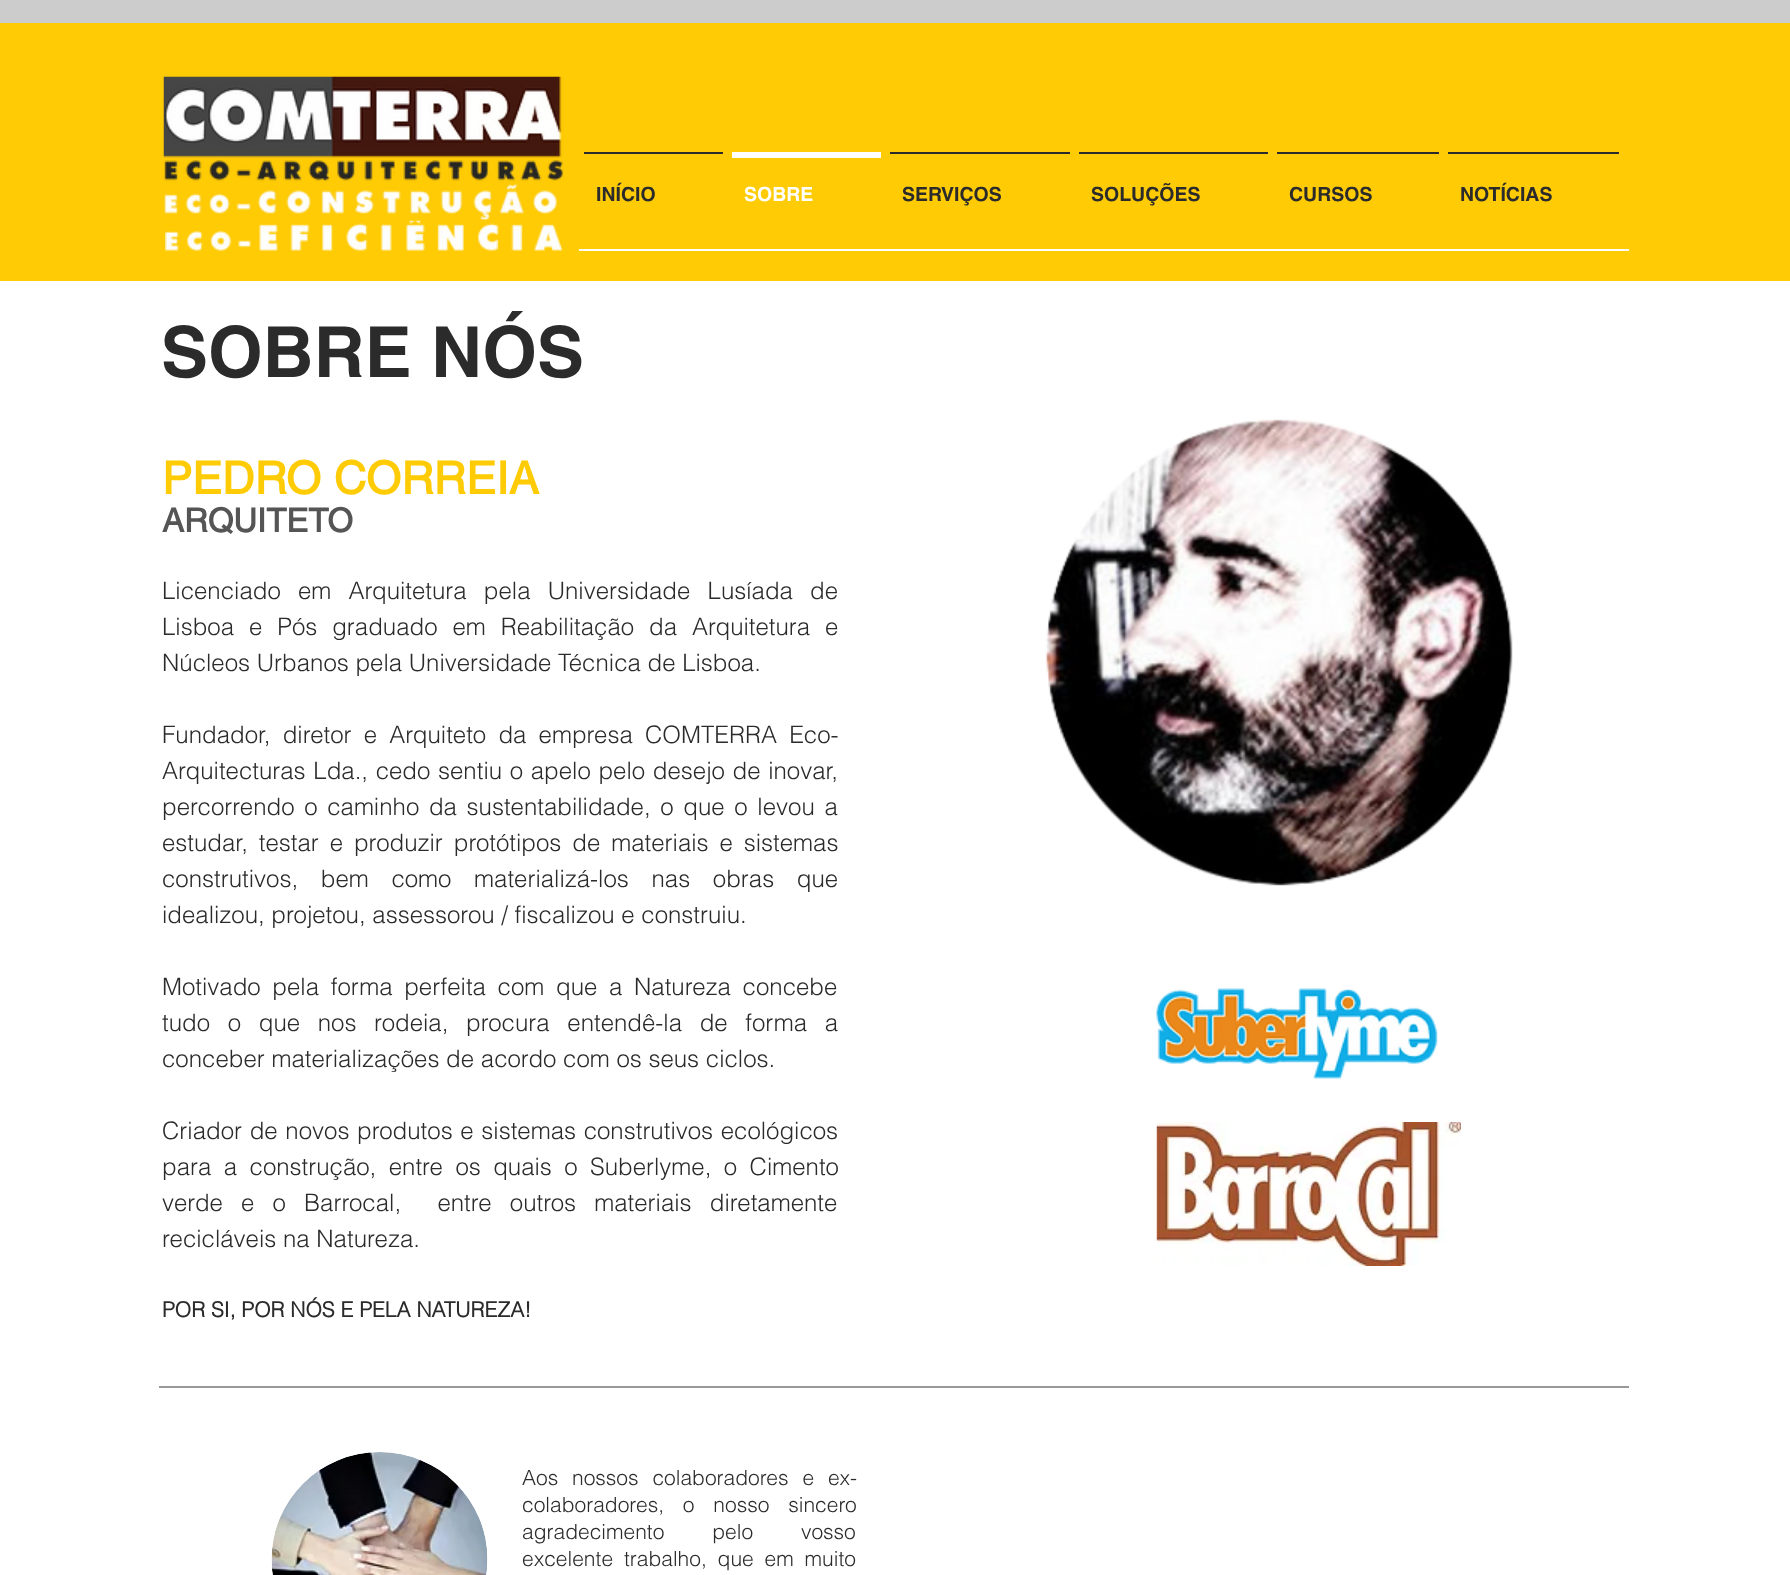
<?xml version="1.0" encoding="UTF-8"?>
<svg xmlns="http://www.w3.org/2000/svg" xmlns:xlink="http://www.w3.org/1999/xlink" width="1790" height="1575">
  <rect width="100%" height="100%" fill="#ffffff" />
  <rect y="23" width="1790" height="258" fill="#ffcb05" />
  <rect width="1790" height="23" fill="#cccccc" />
  <image x="163" y="76" width="401" height="145" xlink:href="image1.png" />
  <rect x="584" y="152" width="139" height="2" fill="#2b2b2b" />
  <rect x="732" y="152" width="149" height="6" fill="#ffffff" />
  <rect x="890" y="152" width="180" height="2" fill="#2b2b2b" />
  <rect x="1079" y="152" width="189" height="2" fill="#2b2b2b" />
  <rect x="1277" y="152" width="162" height="2" fill="#2b2b2b" />
  <rect x="1448" y="152" width="171" height="2" fill="#2b2b2b" />
  <image x="165" y="220" width="398" height="31" xlink:href="image2.png" />
  <rect x="579" y="249" width="1050" height="2" fill="#ffffff" />
  <image x="1045" y="419" width="468" height="467" xlink:href="image3.png" />
  <image x="1156" y="988" width="282" height="91" xlink:href="image4.png" />
  <image x="1156" y="1122" width="305" height="144" xlink:href="image5.png" />
  <rect x="159" y="1386" width="1470" height="2" fill="#999999" />
  <image x="271" y="1452" width="217" height="123" xlink:href="image6.png" />
  <text x="596" y="201" style="font-family: helvetica; font-size: 19.5px; font-weight: bold; fill: #2b2b2b">INÍCIO</text>
  <text x="744" y="201" style="font-family: helvetica; font-size: 19.5px; font-weight: bold; fill: #ffffff">SOBRE</text>
  <text x="902" y="201" style="font-family: helvetica; font-size: 19.5px; font-weight: bold; fill: #2b2b2b">SERVIÇOS</text>
  <text x="1091" y="201" style="font-family: helvetica; font-size: 19.5px; font-weight: bold; fill: #2b2b2b">SOLUÇÕES</text>
  <text x="1289" y="201" style="font-family: helvetica; font-size: 19.5px; font-weight: bold; fill: #2b2b2b">CURSOS</text>
  <text x="1460" y="201" style="font-family: helvetica; font-size: 19.5px; font-weight: bold; fill: #2b2b2b">NOTÍCIAS</text>
  <text x="161" y="377" style="font-family: helvetica; font-size: 70.5px; font-weight: bold; fill: #2b2b2b">SOBRE NÓS</text>
  <text x="162" y="494" style="font-family: 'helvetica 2'; font-size: 45px; font-weight: bold; fill: #ffcb05">PEDRO CORREIA</text>
  <text x="162" y="532" style="font-family: 'helvetica 2'; font-size: 33px; font-weight: bold; fill: #555555">ARQUITETO</text>
  <text x="162" y="599" word-spacing="10.5" style="font-family: helvetica; font-size: 24px; font-weight: 300; fill: #2b2b2b">Licenciado em Arquitetura pela Universidade Lusíada de</text>
  <text x="162" y="635" word-spacing="8.25" style="font-family: helvetica; font-size: 24px; font-weight: 300; fill: #2b2b2b">Lisboa e Pós graduado em Reabilitação da Arquitetura e</text>
  <text x="162" y="671" style="font-family: helvetica; font-size: 24px; font-weight: 300; fill: #2b2b2b">Núcleos Urbanos pela Universidade Técnica de Lisboa.</text>
  <text x="162" y="743" word-spacing="5.5" style="font-family: helvetica; font-size: 24px; font-weight: 300; fill: #2b2b2b">Fundador, diretor e Arquiteto da empresa COMTERRA Eco-</text>
  <text x="162" y="779" word-spacing="1" style="font-family: helvetica; font-size: 24px; font-weight: 300; fill: #2b2b2b">Arquitecturas Lda., cedo sentiu o apelo pelo desejo de inovar,</text>
  <text x="162" y="815" word-spacing="3" style="font-family: helvetica; font-size: 24px; font-weight: 300; fill: #2b2b2b">percorrendo o caminho da sustentabilidade, o que o levou a</text>
  <text x="162" y="851" word-spacing="4.25" style="font-family: helvetica; font-size: 24px; font-weight: 300; fill: #2b2b2b">estudar, testar e produzir protótipos de materiais e sistemas</text>
  <text x="162" y="887" word-spacing="16" style="font-family: helvetica; font-size: 24px; font-weight: 300; fill: #2b2b2b">construtivos, bem como materializá-los nas obras que</text>
  <text x="162" y="923" style="font-family: helvetica; font-size: 24px; font-weight: 300; fill: #2b2b2b">idealizou, projetou, assessorou / fiscalizou e construiu.</text>
  <text x="162" y="995" word-spacing="5" style="font-family: helvetica; font-size: 24px; font-weight: 300; fill: #2b2b2b">Motivado pela forma perfeita com que a Natureza concebe</text>
  <text x="162" y="1031" word-spacing="11" style="font-family: helvetica; font-size: 24px; font-weight: 300; fill: #2b2b2b">tudo o que nos rodeia, procura entendê-la de forma a</text>
  <text x="162" y="1067" style="font-family: helvetica; font-size: 24px; font-weight: 300; fill: #2b2b2b">conceber materializações de acordo com os seus ciclos.</text>
  <text x="162" y="1139" word-spacing="1" style="font-family: helvetica; font-size: 24px; font-weight: 300; fill: #2b2b2b">Criador de novos produtos e sistemas construtivos ecológicos</text>
  <text x="162" y="1175" word-spacing="5.75" style="font-family: helvetica; font-size: 24px; font-weight: 300; fill: #2b2b2b">para a construção, entre os quais o Suberlyme, o Cimento</text>
  <text x="162" y="1211" word-spacing="11.5" style="font-family: helvetica; font-size: 24px; font-weight: 300; fill: #2b2b2b" xml:space="preserve">verde e o Barrocal,  entre outros materiais diretamente</text>
  <text x="162" y="1247" style="font-family: helvetica; font-size: 24px; font-weight: 300; fill: #2b2b2b">recicláveis na Natureza.</text>
  <text x="162" y="1317" style="font-family: 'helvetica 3'; font-size: 21px; font-weight: bold; fill: #2b2b2b">POR SI, POR NÓS E PELA NATUREZA!</text>
  <text x="522" y="1485" word-spacing="8" style="font-family: helvetica; font-size: 21px; font-weight: 300; fill: #2b2b2b">Aos nossos colaboradores e ex-</text>
  <text x="522" y="1512" word-spacing="13" style="font-family: helvetica; font-size: 21px; font-weight: 300; fill: #2b2b2b">colaboradores, o nosso sincero</text>
  <text x="522" y="1539" word-spacing="42" style="font-family: helvetica; font-size: 21px; font-weight: 300; fill: #2b2b2b">agradecimento pelo vosso</text>
  <text x="522" y="1566" word-spacing="5" style="font-family: helvetica; font-size: 21px; font-weight: 300; fill: #2b2b2b">excelente trabalho, que em muito</text>
</svg>
